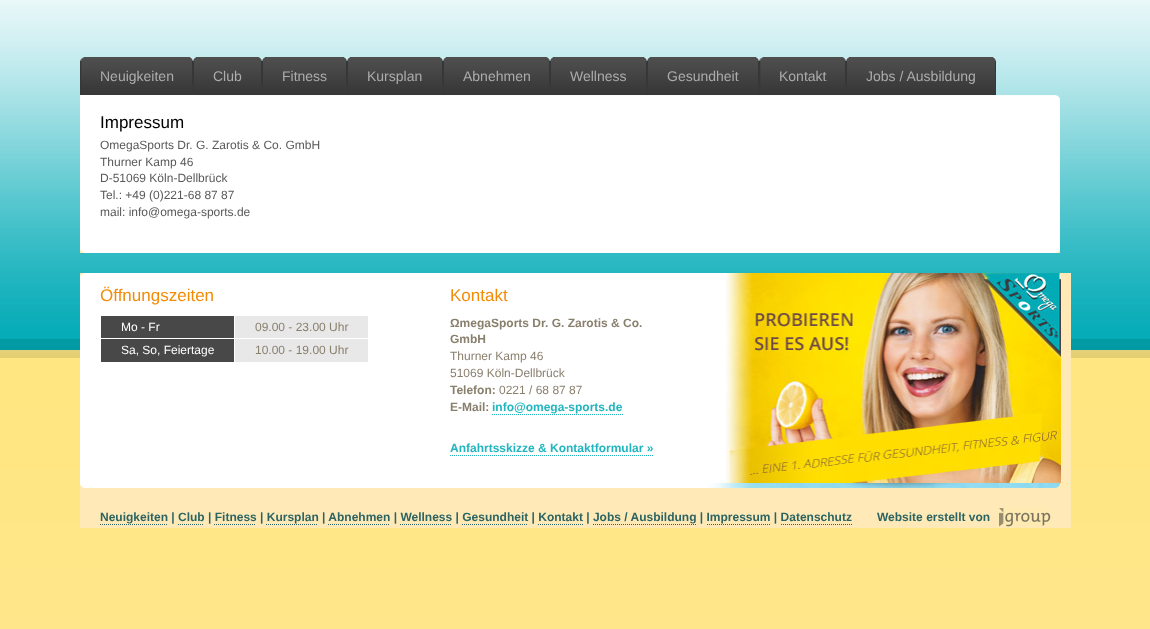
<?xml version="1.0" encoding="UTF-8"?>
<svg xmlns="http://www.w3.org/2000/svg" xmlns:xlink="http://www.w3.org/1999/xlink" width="1150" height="629">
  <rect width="100%" height="100%" fill="#ffffff" />
  <image x="0" y="0" width="1150" height="629" xlink:href="image1.png" />
  <image x="80" y="57" width="5" height="38" xlink:href="image2.png" />
  <image x="85" y="57" width="108" height="38" xlink:href="image3.png" />
  <image x="190" y="57" width="3" height="29" xlink:href="image4.png" />
  <image x="193" y="57" width="4" height="38" xlink:href="image5.png" />
  <image x="197" y="57" width="65" height="38" xlink:href="image6.png" />
  <image x="259" y="57" width="3" height="29" xlink:href="image4.png" />
  <image x="262" y="57" width="4" height="38" xlink:href="image5.png" />
  <image x="266" y="57" width="81" height="38" xlink:href="image7.png" />
  <image x="344" y="57" width="3" height="29" xlink:href="image4.png" />
  <image x="347" y="57" width="4" height="38" xlink:href="image5.png" />
  <image x="351" y="57" width="92" height="38" xlink:href="image8.png" />
  <image x="440" y="57" width="3" height="29" xlink:href="image4.png" />
  <image x="443" y="57" width="4" height="38" xlink:href="image5.png" />
  <image x="447" y="57" width="103" height="38" xlink:href="image9.png" />
  <image x="547" y="57" width="3" height="29" xlink:href="image4.png" />
  <image x="550" y="57" width="4" height="38" xlink:href="image5.png" />
  <image x="554" y="57" width="93" height="38" xlink:href="image10.png" />
  <image x="644" y="57" width="3" height="29" xlink:href="image4.png" />
  <image x="647" y="57" width="4" height="38" xlink:href="image5.png" />
  <image x="651" y="57" width="108" height="38" xlink:href="image3.png" />
  <image x="756" y="57" width="3" height="29" xlink:href="image4.png" />
  <image x="759" y="57" width="5" height="38" xlink:href="image11.png" />
  <image x="764" y="57" width="82" height="38" xlink:href="image12.png" />
  <image x="843" y="57" width="3" height="29" xlink:href="image4.png" />
  <image x="846" y="57" width="4" height="38" xlink:href="image5.png" />
  <image x="850" y="57" width="146" height="38" xlink:href="image13.png" />
  <image x="993" y="57" width="3" height="29" xlink:href="image4.png" />
  <image x="80" y="95" width="980" height="5" xlink:href="image14.png" />
  <rect x="80" y="100" width="980" height="148" fill="#ffffff" />
  <image x="80" y="248" width="980" height="5" xlink:href="image15.png" />
  <rect x="80" y="278" width="645" height="205" fill="#ffffff" />
  <image x="80" y="273" width="645" height="5" xlink:href="image16.png" />
  <rect x="1061" y="273" width="10" height="210" fill="#ffeab7" />
  <rect x="101" y="316" width="133" height="22" fill="#484848" />
  <rect x="235" y="316" width="133" height="22" fill="#e8e8e8" />
  <rect x="101" y="339" width="133" height="23" fill="#484848" />
  <rect x="235" y="339" width="133" height="23" fill="#e8e8e8" />
  <path d="M 492 414.5 h 131" fill="none" stroke="#21b5bf" stroke-dasharray="1 1" />
  <path d="M 450 455.5 h 203" fill="none" stroke="#21b5bf" stroke-dasharray="1 1" />
  <image x="725" y="273" width="336" height="210" xlink:href="image17.png" />
  <image x="80" y="483" width="991" height="5" xlink:href="image18.png" />
  <rect x="80" y="488" width="991" height="40" fill="#ffeab7" />
  <path d="M 100 524.5 h 68" fill="none" stroke="#2c6464" stroke-dasharray="1 1" />
  <path d="M 178 524.5 h 26" fill="none" stroke="#2c6464" stroke-dasharray="1 1" />
  <path d="M 214 524.5 h 42" fill="none" stroke="#2c6464" stroke-dasharray="1 1" />
  <path d="M 266 524.5 h 52" fill="none" stroke="#2c6464" stroke-dasharray="1 1" />
  <path d="M 328 524.5 h 62" fill="none" stroke="#2c6464" stroke-dasharray="1 1" />
  <path d="M 400 524.5 h 52" fill="none" stroke="#2c6464" stroke-dasharray="1 1" />
  <path d="M 462 524.5 h 66" fill="none" stroke="#2c6464" stroke-dasharray="1 1" />
  <path d="M 538 524.5 h 45" fill="none" stroke="#2c6464" stroke-dasharray="1 1" />
  <path d="M 593 524.5 h 104" fill="none" stroke="#2c6464" stroke-dasharray="1 1" />
  <path d="M 707 524.5 h 64" fill="none" stroke="#2c6464" stroke-dasharray="1 1" />
  <path d="M 781 524.5 h 71" fill="none" stroke="#2c6464" stroke-dasharray="1 1" />
  <image x="999" y="508" width="52" height="19" xlink:href="image19.png" />
  <text x="100" y="81" style="font-family: Liberation Sans; font-size: 14px; fill: #adacac">Neuigkeiten</text>
  <text x="213" y="81" style="font-family: Liberation Sans; font-size: 14px; fill: #adacac">Club</text>
  <text x="282" y="81" style="font-family: Liberation Sans; font-size: 14px; fill: #adacac">Fitness</text>
  <text x="367" y="81" style="font-family: Liberation Sans; font-size: 14px; fill: #adacac">Kursplan</text>
  <text x="463" y="81" style="font-family: Liberation Sans; font-size: 14px; fill: #adacac">Abnehmen</text>
  <text x="570" y="81" style="font-family: Liberation Sans; font-size: 14px; fill: #adacac">Wellness</text>
  <text x="667" y="81" style="font-family: Liberation Sans; font-size: 14px; fill: #adacac">Gesundheit</text>
  <text x="779" y="81" style="font-family: Liberation Sans; font-size: 14px; fill: #adacac">Kontakt</text>
  <text x="866" y="81" style="font-family: Liberation Sans; font-size: 14px; fill: #adacac">Jobs / Ausbildung</text>
  <text x="100" y="128" style="font-family: Liberation Sans; font-size: 17px; fill: #000000">Impressum</text>
  <text x="100" y="149" style="font-family: Liberation Sans; font-size: 12px; fill: #595959">OmegaSports Dr. G. Zarotis &amp; Co. GmbH</text>
  <text x="100" y="166" style="font-family: Liberation Sans; font-size: 12px; fill: #595959">Thurner Kamp 46</text>
  <text x="100" y="182" style="font-family: Liberation Sans; font-size: 12px; fill: #595959">D-51069 Köln-Dellbrück</text>
  <text x="100" y="199" style="font-family: Liberation Sans; font-size: 12px; fill: #595959">Tel.: +49 (0)221-68 87 87</text>
  <text x="100" y="216" style="font-family: Liberation Sans; font-size: 12px; fill: #595959">mail: info@omega-sports.de</text>
  <text x="100" y="301" style="font-family: Liberation Sans; font-size: 17px; fill: #f28c07">Öffnungszeiten</text>
  <text x="121" y="331" style="font-family: Liberation Sans; font-size: 12px; fill: #ffffff">Mo - Fr</text>
  <text x="255" y="331" style="font-family: Liberation Sans; font-size: 12px; fill: #897f6d">09.00 - 23.00 Uhr</text>
  <text x="121" y="354" style="font-family: Liberation Sans; font-size: 12px; fill: #ffffff">Sa, So, Feiertage</text>
  <text x="255" y="354" style="font-family: Liberation Sans; font-size: 12px; fill: #897f6d">10.00 - 19.00 Uhr</text>
  <text x="450" y="301" style="font-family: Liberation Sans; font-size: 17px; fill: #f28c07">Kontakt</text>
  <text x="450" y="327" style="font-family: Liberation Sans; font-size: 12px; font-weight: bold; fill: #897f6d">ΩmegaSports Dr. G. Zarotis &amp; Co.</text>
  <text x="450" y="343" style="font-family: Liberation Sans; font-size: 12px; font-weight: bold; fill: #897f6d">GmbH</text>
  <text x="450" y="360" style="font-family: Liberation Sans; font-size: 12px; fill: #897f6d">Thurner Kamp 46</text>
  <text x="450" y="377" style="font-family: Liberation Sans; font-size: 12px; fill: #897f6d">51069 Köln-Dellbrück</text>
  <text x="450" y="394" style="font-family: Liberation Sans; font-size: 12px; font-weight: bold; fill: #897f6d">Telefon:</text>
  <text x="499" y="394" style="font-family: Liberation Sans; font-size: 12px; fill: #897f6d">0221 / 68 87 87</text>
  <text x="450" y="411" style="font-family: Liberation Sans; font-size: 12px; font-weight: bold; fill: #897f6d">E-Mail:</text>
  <text x="492" y="411" style="font-family: Liberation Sans; font-size: 12px; font-weight: bold; fill: #21b5bf">info@omega-sports.de</text>
  <text x="450" y="452" style="font-family: Liberation Sans; font-size: 12px; font-weight: bold; fill: #21b5bf">Anfahrtsskizze &amp; Kontaktformular »</text>
  <text x="100" y="521" style="font-family: Liberation Sans; font-size: 12px; font-weight: bold; fill: #2c6464">Neuigkeiten | Club | Fitness | Kursplan | Abnehmen | Wellness | Gesundheit | Kontakt | Jobs / Ausbildung | Impressum | Datenschutz</text>
  <text x="877" y="521" style="font-family: Liberation Sans; font-size: 12px; font-weight: bold; fill: #2c6464">Website erstellt von</text>
</svg>
